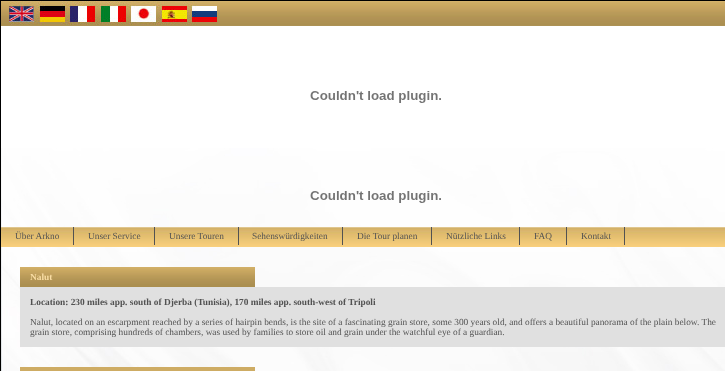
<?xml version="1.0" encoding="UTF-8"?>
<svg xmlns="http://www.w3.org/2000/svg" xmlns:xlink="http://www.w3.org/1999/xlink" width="725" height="371">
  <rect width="100%" height="100%" fill="#ffffff" />
  <image x="1" y="148" width="724" height="223" xlink:href="image1.png" />
  <rect x="0.5" y="0.5" width="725" height="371" fill="none" stroke="#000000" />
  <image x="1" y="1" width="8" height="25" xlink:href="image2.png" />
  <image x="9" y="1" width="28" height="25" xlink:href="image3.png" />
  <image x="37" y="1" width="30" height="25" xlink:href="image4.png" />
  <image x="67" y="1" width="31" height="25" xlink:href="image5.png" />
  <image x="98" y="1" width="30" height="25" xlink:href="image6.png" />
  <image x="128" y="1" width="31" height="25" xlink:href="image7.png" />
  <image x="159" y="1" width="30" height="25" xlink:href="image8.png" />
  <image x="189" y="1" width="28" height="25" xlink:href="image9.png" />
  <image x="217" y="1" width="508" height="25" xlink:href="image10.png" />
  <image x="310" y="91" width="131" height="12" xlink:href="image11.png" />
  <image x="310" y="191" width="131" height="12" xlink:href="image12.png" />
  <image x="1" y="227" width="724" height="20" xlink:href="image13.png" />
  <rect x="73" y="227" width="1" height="18" fill="#525252" />
  <rect x="154" y="227" width="1" height="18" fill="#525252" />
  <rect x="238" y="227" width="1" height="18" fill="#525252" />
  <rect x="342" y="227" width="1" height="18" fill="#525252" />
  <rect x="431" y="227" width="1" height="18" fill="#525252" />
  <rect x="519" y="227" width="1" height="18" fill="#525252" />
  <rect x="566" y="227" width="1" height="18" fill="#525252" />
  <rect x="624" y="227" width="1" height="18" fill="#525252" />
  <image x="20" y="267" width="235" height="20" xlink:href="image14.png" />
  <rect x="20" y="287" width="705" height="60" fill="#e0e0e0" />
  <rect x="20" y="367" width="235" height="4" fill="#ceac64" />
  <text x="15" y="239" style="font-family: Liberation Serif; font-size: 9.33px; fill: #525252">Über Arkno</text>
  <text x="88" y="239" style="font-family: Liberation Serif; font-size: 9.33px; fill: #525252">Unser Service</text>
  <text x="169" y="239" style="font-family: Liberation Serif; font-size: 9.33px; fill: #525252">Unsere Touren</text>
  <text x="252" y="239" style="font-family: Liberation Serif; font-size: 9.33px; fill: #525252">Sehenswürdigkeiten</text>
  <text x="357" y="239" style="font-family: Liberation Serif; font-size: 9.33px; fill: #525252">Die Tour planen</text>
  <text x="446" y="239" style="font-family: Liberation Serif; font-size: 9.33px; fill: #525252">Nützliche Links</text>
  <text x="534" y="239" style="font-family: Liberation Serif; font-size: 9.33px; fill: #525252">FAQ</text>
  <text x="581" y="239" style="font-family: Liberation Serif; font-size: 9.33px; fill: #525252">Kontakt</text>
  <text x="30" y="280" style="font-family: Liberation Serif; font-size: 9.33px; font-weight: bold; fill: #fadea5">Nalut</text>
  <text x="30" y="305" style="font-family: Liberation Serif; font-size: 9.33px; font-weight: bold; fill: #525252">Location: 230 miles app. south of Djerba (Tunisia), 170 miles app. south-west of Tripoli</text>
  <text x="30" y="325" style="font-family: Liberation Serif; font-size: 9.33px; fill: #525252">Nalut, located on an escarpment reached by a series of hairpin bends, is the site of a fascinating grain store, some 300 years old, and offers a beautiful panorama of the plain below. The</text>
  <text x="30" y="335" style="font-family: Liberation Serif; font-size: 9.33px; fill: #525252">grain store, comprising hundreds of chambers, was used by families to store oil and grain under the watchful eye of a guardian.</text>
</svg>
